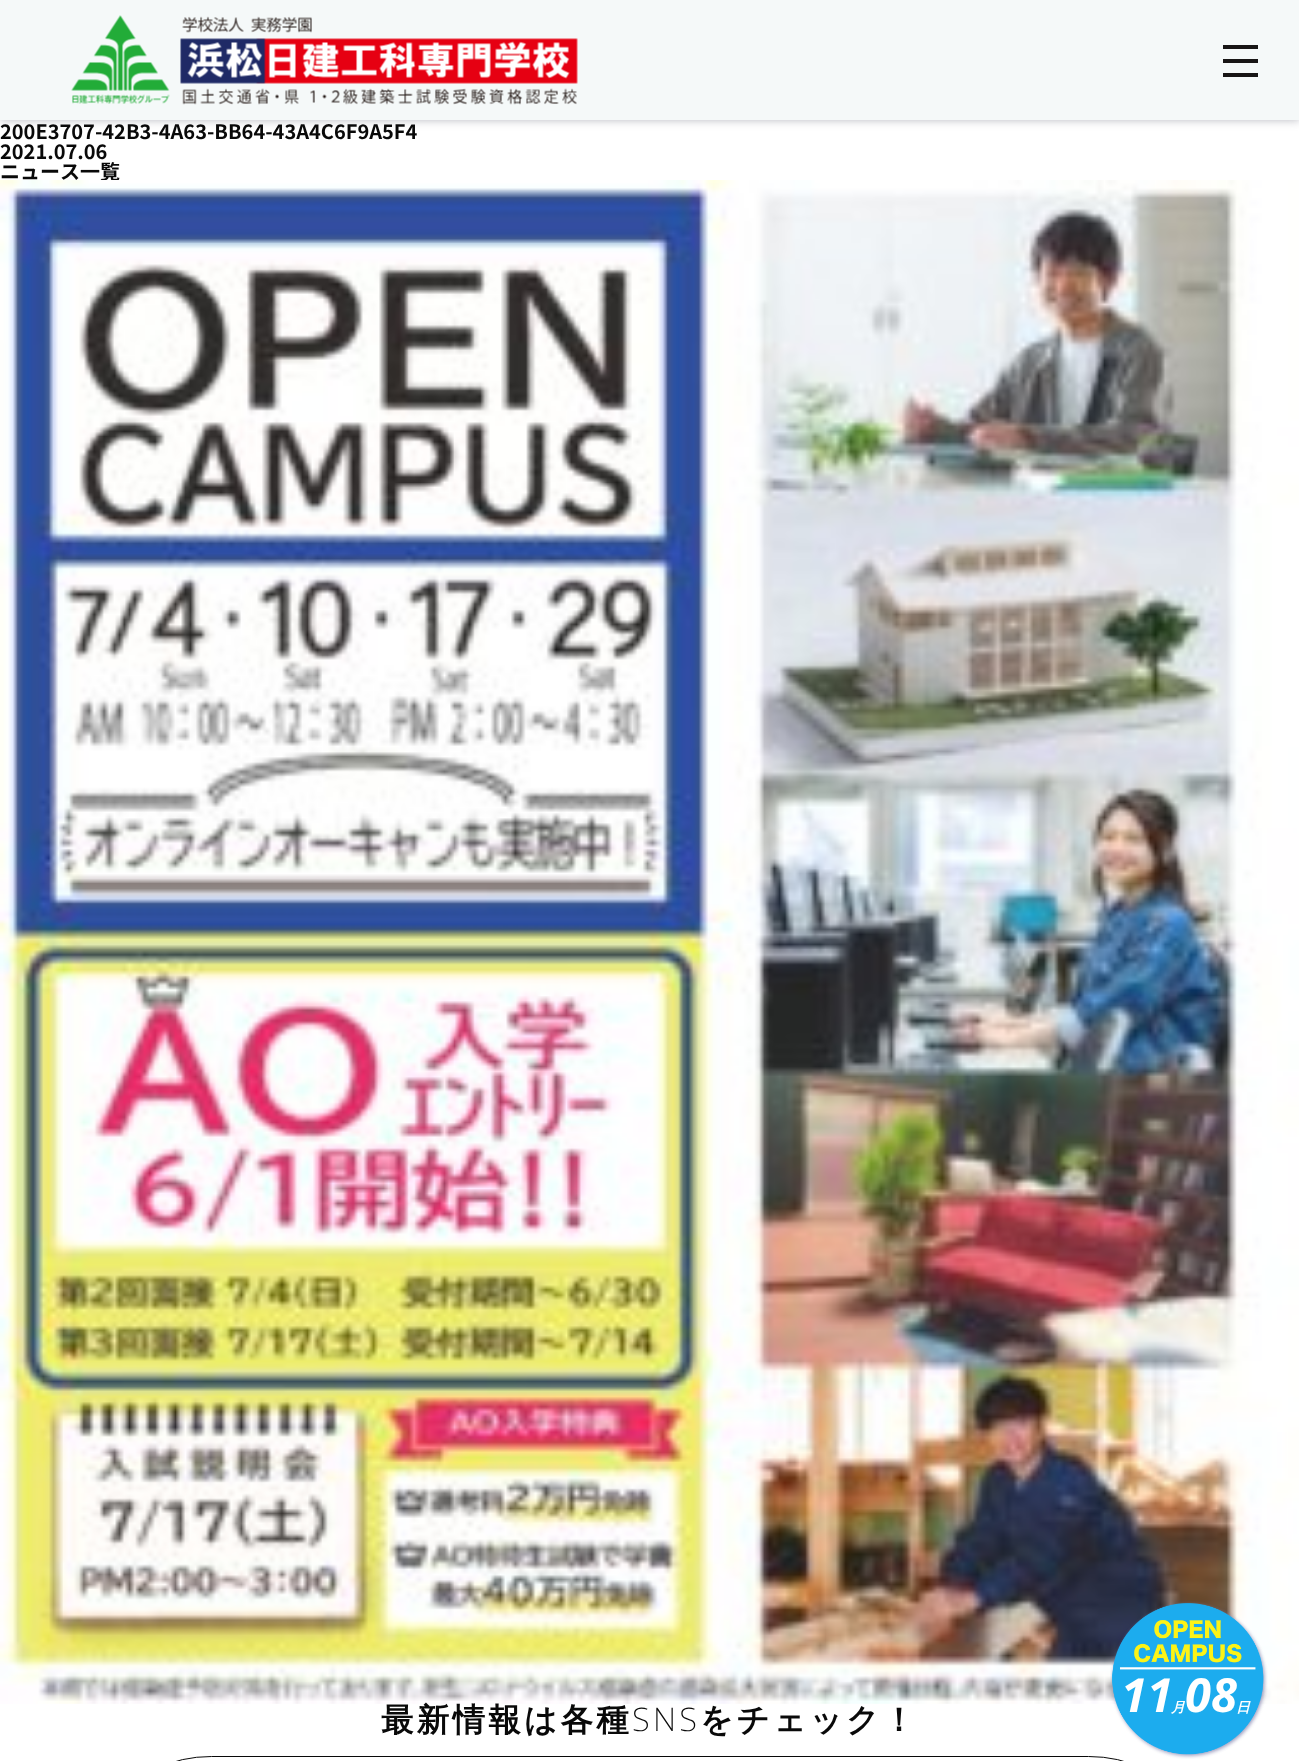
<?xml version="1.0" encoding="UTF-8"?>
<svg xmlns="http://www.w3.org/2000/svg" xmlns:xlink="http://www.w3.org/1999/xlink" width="1299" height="1761">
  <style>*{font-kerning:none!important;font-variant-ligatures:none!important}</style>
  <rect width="100%" height="100%" fill="#ffffff" />
  <rect width="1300" height="120" fill="#747583" fill-opacity="0.51" filter="blur(5px)" />
  <rect width="1299" height="120" fill="#f5f9f9" />
  <image x="71" y="15" width="507" height="90" xlink:href="image1.png" />
  <rect x="1223" y="45" width="35" height="4" fill="#181616" />
  <rect x="1223" y="59" width="35" height="4" fill="#181616" />
  <rect x="1223" y="73" width="35" height="4" fill="#181616" />
  <rect x="135.5" y="1756.5" width="1029" height="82" rx="76" fill="none" stroke="#090909" />
  <text x="0" y="139" style="font-family: Noto Sans CJK JP; font-size: 20px; font-weight: bold; fill: #090909">200E3707-42B3-4A63-BB64-43A4C6F9A5F4</text>
  <text x="0" y="159" style="font-family: Noto Sans CJK JP; font-size: 20px; font-weight: bold; fill: #090909">2021.07.06</text>
  <text x="0" y="179" style="font-family: Noto Sans CJK JP; font-size: 20px; font-weight: bold; fill: #090909">ニュース一覧</text>
  <image x="0" y="180" width="1299" height="1524" xlink:href="image2.png" />
  <text x="381" y="1731" style="font-family: WenQuanYi Zen Hei; font-size: 32.5px; font-weight: bold; letter-spacing: 3.25px; fill: #090909">最新情報は各種</text>
  <text x="632" y="1731" style="font-family: Noto Sans; font-size: 32.5px; font-weight: 200; letter-spacing: 3.25px; fill: #090909">SNS</text>
  <text x="700" y="1731" style="font-family: WenQuanYi Zen Hei; font-size: 32.5px; font-weight: bold; letter-spacing: 3.25px; fill: #090909">をチェック！</text>
  <image x="1110" y="1601" width="158" height="158" xlink:href="image3.png" />
  <text x="1121" y="1712" style="font-family: Noto Sans; font-size: 47px; font-weight: bold; font-style: italic; fill: #ffffff">11</text>
  <text x="1171" y="1712" style="font-family: WenQuanYi Zen Hei; font-size: 14px; font-weight: bold; font-style: italic; fill: #ffffff">月</text>
  <text x="1185" y="1712" style="font-family: Noto Sans; font-size: 47px; font-weight: bold; font-style: italic; fill: #ffffff">08</text>
  <text x="1236" y="1712" style="font-family: WenQuanYi Zen Hei; font-size: 14px; font-weight: bold; font-style: italic; fill: #ffffff">日</text>
</svg>
